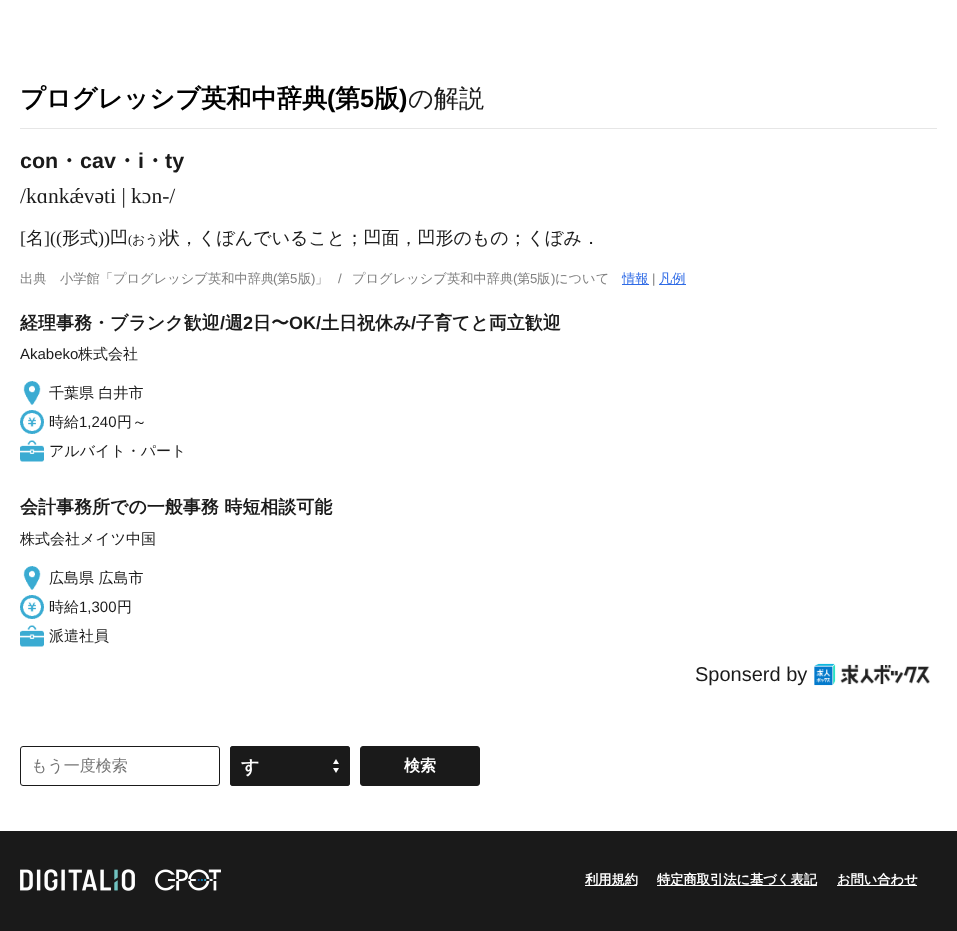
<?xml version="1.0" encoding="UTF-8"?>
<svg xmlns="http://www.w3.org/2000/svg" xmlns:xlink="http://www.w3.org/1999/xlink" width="957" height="931">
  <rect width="100%" height="100%" fill="#ffffff" />
  <rect x="20" y="128" width="917" height="1" fill="#e6e6e6" />
  <rect x="622" y="284" width="27" height="1" fill="#2f6be6" />
  <rect x="659" y="284" width="27" height="1" fill="#2f6be6" />
  <image x="23" y="381" width="18" height="24" xlink:href="image1.png" />
  <image x="20" y="410" width="24" height="24" xlink:href="image2.png" />
  <image x="20" y="440" width="24" height="22" xlink:href="image3.png" />
  <image x="23" y="566" width="18" height="24" xlink:href="image1.png" />
  <image x="20" y="595" width="24" height="24" xlink:href="image2.png" />
  <image x="20" y="625" width="24" height="22" xlink:href="image3.png" />
  <image x="814" y="663" width="116" height="23" xlink:href="image4.png" />
  <rect x="20.5" y="746.5" width="199" height="39" rx="2.5" fill="none" stroke="#1a1a1a" />
  <rect x="230" y="746" width="120" height="40" rx="3" fill="#1a1a1a" />
  <image x="333" y="759" width="6" height="14" xlink:href="image5.png" />
  <rect x="230.5" y="746.5" width="119" height="39" rx="2.5" fill="none" stroke="#1a1a1a" />
  <rect x="360.5" y="746.5" width="119" height="39" rx="2.5" fill="#1a1a1a" stroke="#1a1a1a" />
  <rect y="831" width="957" height="100" fill="#1a1a1a" />
  <image x="20" y="869" width="115" height="22" xlink:href="image6.png" />
  <image x="155" y="869" width="66" height="22" xlink:href="image7.png" />
  <rect x="585" y="885" width="52" height="1" fill="#ffffff" />
  <rect x="657" y="885" width="160" height="1" fill="#ffffff" />
  <rect x="837" y="885" width="80" height="1" fill="#ffffff" />
  <text x="20" y="107" style="font-family: WenQuanYi Zen Hei; font-size: 25.25px; font-weight: bold; fill: #000000">プログレッシブ英和中辞典</text>
  <text x="327" y="107" style="font-family: Liberation Sans; font-size: 25.25px; font-weight: bold; fill: #000000">(</text>
  <text x="335" y="107" style="font-family: WenQuanYi Zen Hei; font-size: 25.25px; font-weight: bold; fill: #000000">第</text>
  <text x="360" y="107" style="font-family: Liberation Sans; font-size: 25.25px; font-weight: bold; fill: #000000">5</text>
  <text x="374" y="107" style="font-family: WenQuanYi Zen Hei; font-size: 25.25px; font-weight: bold; fill: #000000">版</text>
  <text x="399" y="107" style="font-family: Liberation Sans; font-size: 25.25px; font-weight: bold; fill: #000000">)</text>
  <text x="408" y="107" style="font-family: WenQuanYi Zen Hei; font-size: 25.25px; font-weight: 500; fill: #1a1a1a">の解説</text>
  <text x="20" y="168" style="font-family: Liberation Sans; font-size: 21.5px; font-weight: bold; fill: #1a1a1a">con</text>
  <text x="58" y="168" style="font-family: WenQuanYi Zen Hei; font-size: 21.5px; font-weight: bold; fill: #1a1a1a">・</text>
  <text x="80" y="168" style="font-family: Liberation Sans; font-size: 21.5px; font-weight: bold; fill: #1a1a1a">cav</text>
  <text x="116" y="168" style="font-family: WenQuanYi Zen Hei; font-size: 21.5px; font-weight: bold; fill: #1a1a1a">・</text>
  <text x="138" y="168" style="font-family: Liberation Sans; font-size: 21.5px; font-weight: bold; fill: #1a1a1a">i</text>
  <text x="144" y="168" style="font-family: WenQuanYi Zen Hei; font-size: 21.5px; font-weight: bold; fill: #1a1a1a">・</text>
  <text x="165" y="168" style="font-family: Liberation Sans; font-size: 21.5px; font-weight: bold; fill: #1a1a1a">ty</text>
  <text x="20" y="203" style="font-family: Liberation Serif; font-size: 21.5px; fill: #1a1a1a">/kɑnkǽvəti | kɔn-/</text>
  <text x="20" y="244" style="font-family: Liberation Serif; font-size: 18px; fill: #1a1a1a">[</text>
  <text x="26" y="244" style="font-family: WenQuanYi Zen Hei; font-size: 18px; font-weight: 500; fill: #1a1a1a">名</text>
  <text x="44" y="244" style="font-family: Liberation Serif; font-size: 18px; fill: #1a1a1a">]((</text>
  <text x="62" y="244" style="font-family: WenQuanYi Zen Hei; font-size: 18px; font-weight: 500; fill: #1a1a1a">形式</text>
  <text x="98" y="244" style="font-family: Liberation Serif; font-size: 18px; fill: #1a1a1a">))</text>
  <text x="110" y="244" style="font-family: WenQuanYi Zen Hei; font-size: 18px; font-weight: 500; fill: #1a1a1a">凹</text>
  <text x="128" y="244" style="font-family: Liberation Serif; font-size: 13px; fill: #1a1a1a">(</text>
  <text x="132" y="244" style="font-family: WenQuanYi Zen Hei; font-size: 13px; font-weight: 500; fill: #1a1a1a">おう</text>
  <text x="158" y="244" style="font-family: Liberation Serif; font-size: 13px; fill: #1a1a1a">)</text>
  <text x="162" y="244" style="font-family: WenQuanYi Zen Hei; font-size: 18px; font-weight: 500; fill: #1a1a1a">状，くぼんでいること；凹面，凹形のもの；くぼみ．</text>
  <text x="20" y="283" style="font-family: WenQuanYi Zen Hei; font-size: 13.25px; font-weight: 500; fill: #808080">出典</text>
  <text x="60" y="283" style="font-family: WenQuanYi Zen Hei; font-size: 13.25px; font-weight: 500; fill: #808080">小学館「プログレッシブ英和中辞典</text>
  <text x="273" y="283" style="font-family: Liberation Sans; font-size: 13.25px; fill: #808080">(</text>
  <text x="277" y="283" style="font-family: WenQuanYi Zen Hei; font-size: 13.25px; font-weight: 500; fill: #808080">第</text>
  <text x="290" y="283" style="font-family: Liberation Sans; font-size: 13.25px; fill: #808080">5</text>
  <text x="298" y="283" style="font-family: WenQuanYi Zen Hei; font-size: 13.25px; font-weight: 500; fill: #808080">版</text>
  <text x="311" y="283" style="font-family: Liberation Sans; font-size: 13.25px; fill: #808080">)</text>
  <text x="315" y="283" style="font-family: WenQuanYi Zen Hei; font-size: 13.25px; font-weight: 500; fill: #808080">」</text>
  <text x="338" y="283" style="font-family: Liberation Sans; font-size: 13.25px; fill: #808080">/</text>
  <text x="352" y="283" style="font-family: WenQuanYi Zen Hei; font-size: 13.25px; font-weight: 500; fill: #808080">プログレッシブ英和中辞典</text>
  <text x="513" y="283" style="font-family: Liberation Sans; font-size: 13.25px; fill: #808080">(</text>
  <text x="517" y="283" style="font-family: WenQuanYi Zen Hei; font-size: 13.25px; font-weight: 500; fill: #808080">第</text>
  <text x="530" y="283" style="font-family: Liberation Sans; font-size: 13.25px; fill: #808080">5</text>
  <text x="537" y="283" style="font-family: WenQuanYi Zen Hei; font-size: 13.25px; font-weight: 500; fill: #808080">版</text>
  <text x="551" y="283" style="font-family: Liberation Sans; font-size: 13.25px; fill: #808080">)</text>
  <text x="555" y="283" style="font-family: WenQuanYi Zen Hei; font-size: 13.25px; font-weight: 500; fill: #808080">について</text>
  <text x="622" y="283" style="font-family: WenQuanYi Zen Hei; font-size: 13.25px; font-weight: 500; fill: #2f6be6">情報</text>
  <text x="652" y="283" style="font-family: Liberation Sans; font-size: 13.25px; fill: #808080">|</text>
  <text x="659" y="283" style="font-family: WenQuanYi Zen Hei; font-size: 13.25px; font-weight: 500; fill: #2f6be6">凡例</text>
  <text x="20" y="329" style="font-family: WenQuanYi Zen Hei; font-size: 18px; font-weight: bold; fill: #1a1a1a">経理事務・ブランク歓迎</text>
  <text x="220" y="329" style="font-family: Liberation Sans; font-size: 18px; font-weight: bold; fill: #1a1a1a">/</text>
  <text x="225" y="329" style="font-family: WenQuanYi Zen Hei; font-size: 18px; font-weight: bold; fill: #1a1a1a">週</text>
  <text x="243" y="329" style="font-family: Liberation Sans; font-size: 18px; font-weight: bold; fill: #1a1a1a">2</text>
  <text x="253" y="329" style="font-family: WenQuanYi Zen Hei; font-size: 18px; font-weight: bold; fill: #1a1a1a">日〜</text>
  <text x="289" y="329" style="font-family: Liberation Sans; font-size: 18px; font-weight: bold; fill: #1a1a1a">OK/</text>
  <text x="321" y="329" style="font-family: WenQuanYi Zen Hei; font-size: 18px; font-weight: bold; fill: #1a1a1a">土日祝休み</text>
  <text x="411" y="329" style="font-family: Liberation Sans; font-size: 18px; font-weight: bold; fill: #1a1a1a">/</text>
  <text x="416" y="329" style="font-family: WenQuanYi Zen Hei; font-size: 18px; font-weight: bold; fill: #1a1a1a">子育てと両立歓迎</text>
  <text x="20" y="359" style="font-family: Liberation Sans; font-size: 15px; fill: #1a1a1a">Akabeko</text>
  <text x="78" y="359" style="font-family: WenQuanYi Zen Hei; font-size: 15px; font-weight: 500; fill: #1a1a1a">株式会社</text>
  <text x="49" y="398" style="font-family: WenQuanYi Zen Hei; font-size: 15px; font-weight: 500; fill: #1a1a1a">千葉県 白井市</text>
  <text x="49" y="427" style="font-family: WenQuanYi Zen Hei; font-size: 15px; font-weight: 500; fill: #1a1a1a">時給</text>
  <text x="79" y="427" style="font-family: Liberation Sans; font-size: 15px; fill: #1a1a1a">1,240</text>
  <text x="117" y="427" style="font-family: WenQuanYi Zen Hei; font-size: 15px; font-weight: 500; fill: #1a1a1a">円～</text>
  <text x="49" y="456" style="font-family: WenQuanYi Zen Hei; font-size: 15px; font-weight: 500; fill: #1a1a1a">アルバイト・パート</text>
  <text x="20" y="513" style="font-family: WenQuanYi Zen Hei; font-size: 18px; font-weight: bold; fill: #1a1a1a">会計事務所での一般事務 時短相談可能</text>
  <text x="20" y="544" style="font-family: WenQuanYi Zen Hei; font-size: 15px; font-weight: 500; fill: #1a1a1a">株式会社メイツ中国</text>
  <text x="49" y="583" style="font-family: WenQuanYi Zen Hei; font-size: 15px; font-weight: 500; fill: #1a1a1a">広島県 広島市</text>
  <text x="49" y="612" style="font-family: WenQuanYi Zen Hei; font-size: 15px; font-weight: 500; fill: #1a1a1a">時給</text>
  <text x="79" y="612" style="font-family: Liberation Sans; font-size: 15px; fill: #1a1a1a">1,300</text>
  <text x="117" y="612" style="font-family: WenQuanYi Zen Hei; font-size: 15px; font-weight: 500; fill: #1a1a1a">円</text>
  <text x="49" y="641" style="font-family: WenQuanYi Zen Hei; font-size: 15px; font-weight: 500; fill: #1a1a1a">派遣社員</text>
  <text x="695" y="681" style="font-family: Liberation Sans; font-size: 20px; fill: #1a1a1a">Sponserd by</text>
  <text x="31" y="771" style="font-family: WenQuanYi Zen Hei; font-size: 16px; font-weight: 500; fill: #757575">もう一度検索</text>
  <text x="241" y="773" style="font-family: WenQuanYi Zen Hei; font-size: 18px; font-weight: bold; fill: #ffffff">す</text>
  <text x="404" y="771" style="font-family: WenQuanYi Zen Hei; font-size: 16px; font-weight: bold; fill: #ffffff">検索</text>
  <text x="585" y="884" style="font-family: WenQuanYi Zen Hei; font-size: 13.25px; font-weight: bold; fill: #ffffff">利用規約</text>
  <text x="657" y="884" style="font-family: WenQuanYi Zen Hei; font-size: 13.25px; font-weight: bold; fill: #ffffff">特定商取引法に基づく表記</text>
  <text x="837" y="884" style="font-family: WenQuanYi Zen Hei; font-size: 13.25px; font-weight: bold; fill: #ffffff">お問い合わせ</text>
</svg>
